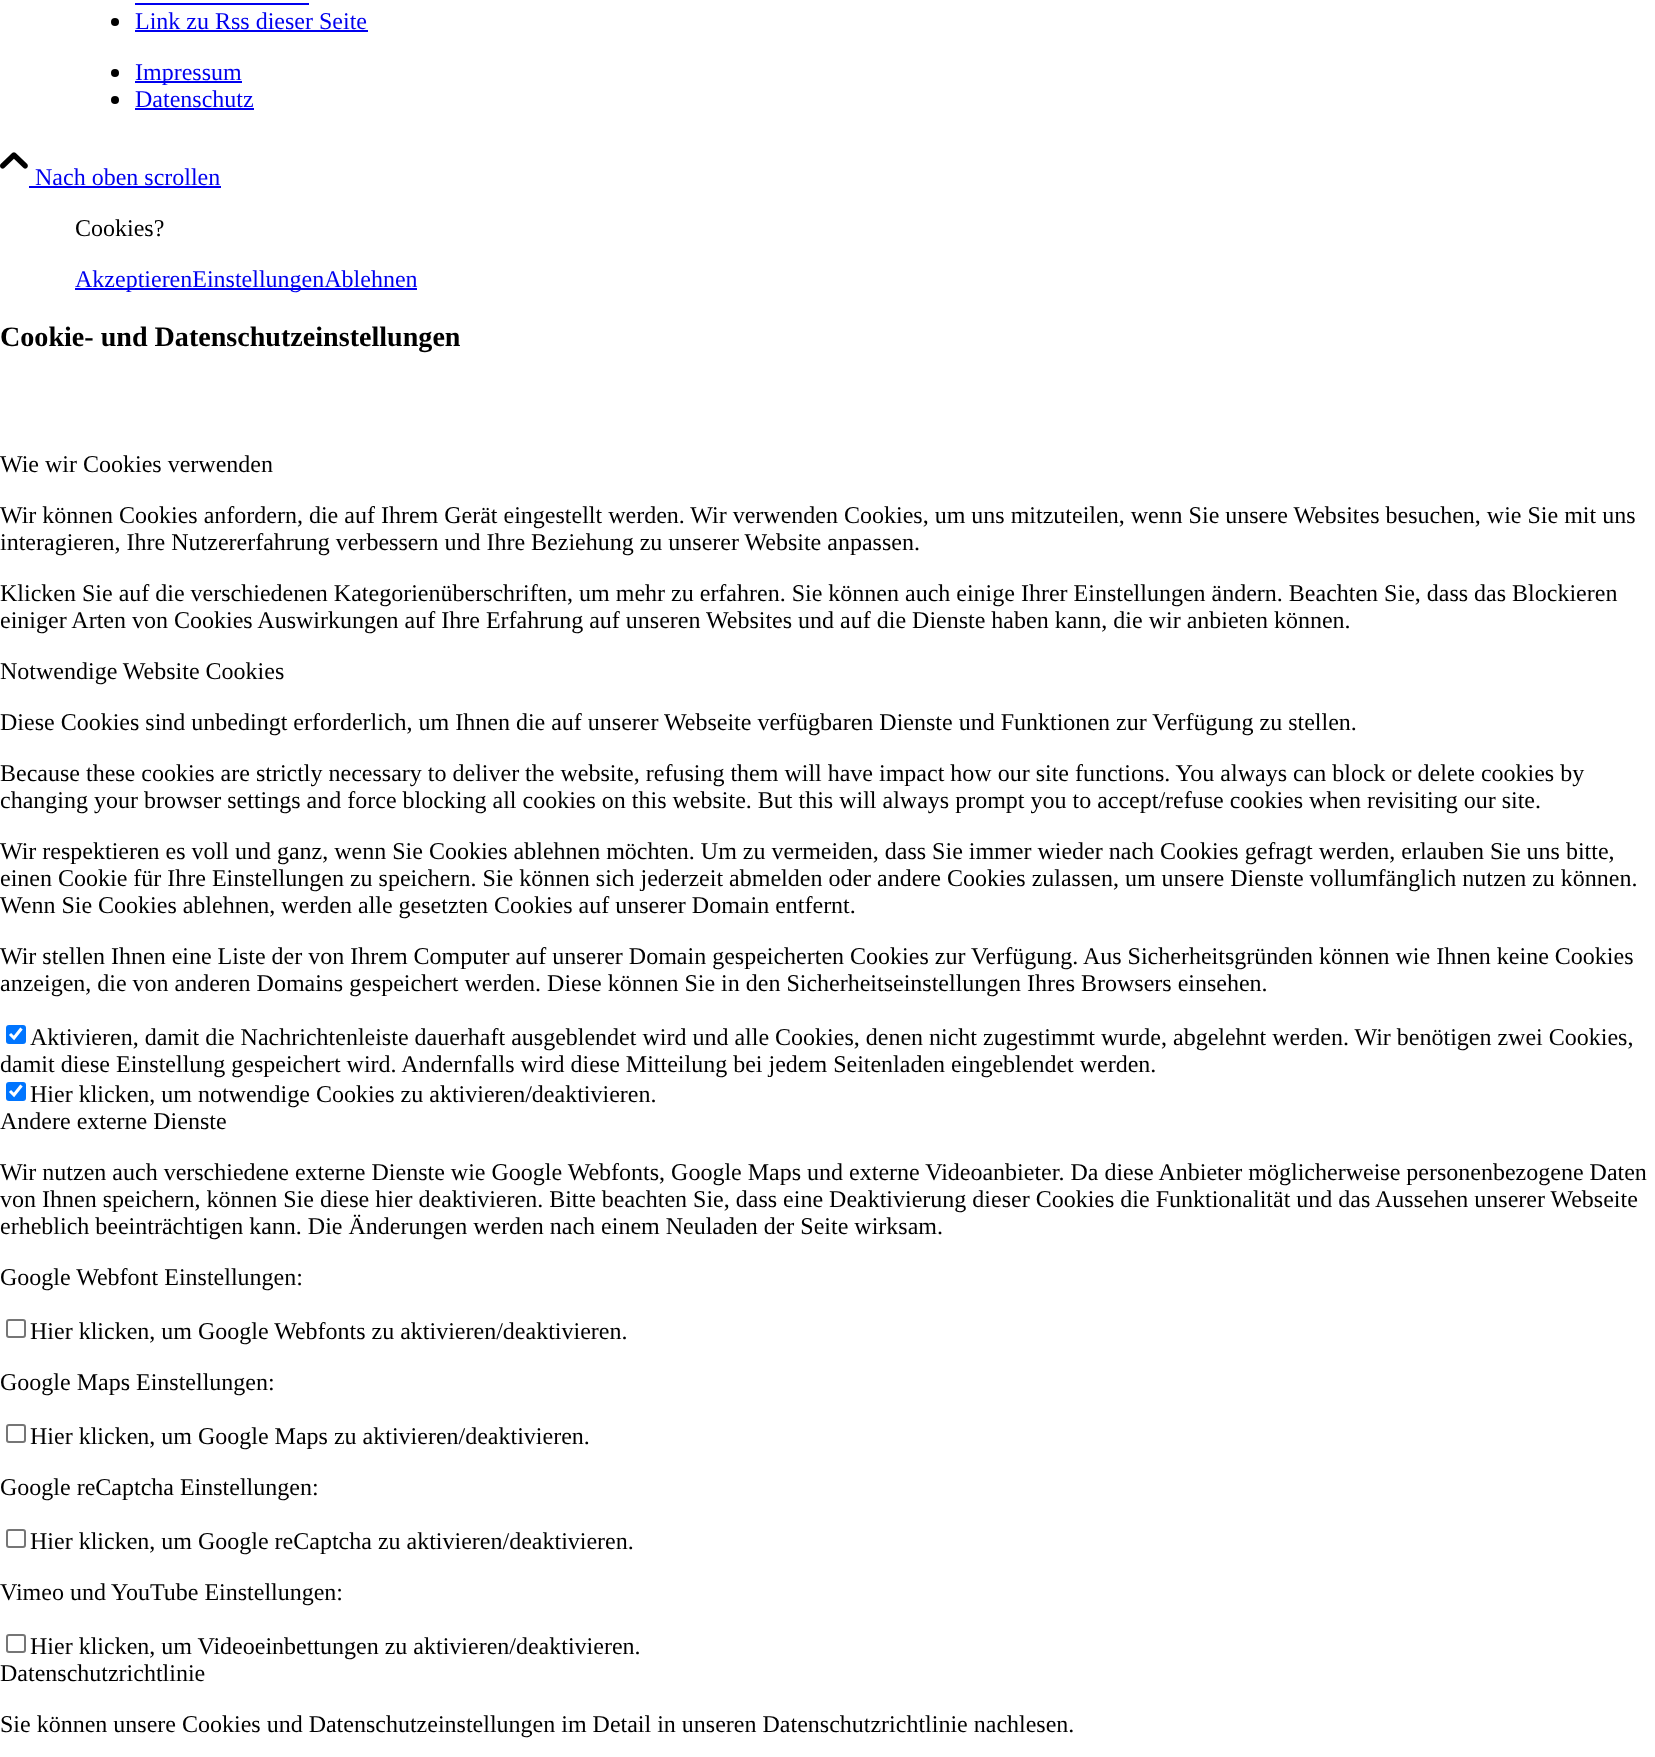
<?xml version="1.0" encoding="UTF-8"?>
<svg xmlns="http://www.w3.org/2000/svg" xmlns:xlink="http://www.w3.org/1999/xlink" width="1655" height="1757">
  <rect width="100%" height="100%" fill="#ffffff" />
  <rect x="135" y="3" width="174" height="2" fill="#0000ee" />
  <circle cx="115" cy="22" r="4" fill="#000000" />
  <rect x="135" y="30" width="233" height="2" fill="#0000ee" />
  <circle cx="115" cy="73" r="4" fill="#000000" />
  <rect x="135" y="81" width="107" height="2" fill="#0000ee" />
  <circle cx="115" cy="100" r="4" fill="#000000" />
  <rect x="135" y="108" width="119" height="2" fill="#0000ee" />
  <image x="0" y="152" width="28" height="17" xlink:href="image1.png" />
  <rect x="29" y="186" width="192" height="2" fill="#0000ee" />
  <rect x="75" y="288" width="342" height="2" fill="#0000ee" />
  <rect x="6" y="1025" width="20" height="19" rx="3" fill="#0075ff" />
  <path d="M 10 1034 l 4 4 l 7.5 -9.5" fill="none" stroke="#ffffff" stroke-width="3.1" />
  <rect x="6" y="1082" width="20" height="19" rx="3" fill="#0075ff" />
  <path d="M 10 1091 l 4 4 l 7.5 -9.5" fill="none" stroke="#ffffff" stroke-width="3.1" />
  <rect x="7" y="1320" width="18" height="17" rx="2" fill="none" stroke="#767676" stroke-width="2" />
  <rect x="7" y="1425" width="18" height="17" rx="2" fill="none" stroke="#767676" stroke-width="2" />
  <rect x="7" y="1530" width="18" height="17" rx="2" fill="none" stroke="#767676" stroke-width="2" />
  <rect x="7" y="1635" width="18" height="17" rx="2" fill="none" stroke="#767676" stroke-width="2" />
  <text x="135" y="29" style="font-family: Liberation Serif; font-size: 24px; fill: #0000ee">Link zu Rss dieser Seite</text>
  <text x="135" y="80" style="font-family: Liberation Serif; font-size: 24px; fill: #0000ee">Impressum</text>
  <text x="135" y="107" style="font-family: Liberation Serif; font-size: 24px; fill: #0000ee">Datenschutz</text>
  <text x="35" y="185" style="font-family: Liberation Serif; font-size: 24px; fill: #0000ee">Nach oben scrollen</text>
  <text x="75" y="236" style="font-family: Liberation Serif; font-size: 24px; fill: #000000">Cookies?</text>
  <text x="75" y="287" style="font-family: Liberation Serif; font-size: 24px; fill: #0000ee">AkzeptierenEinstellungenAblehnen</text>
  <text x="0" y="346" style="font-family: Liberation Serif; font-size: 28.1px; font-weight: bold; fill: #000000">Cookie- und Datenschutzeinstellungen</text>
  <text x="0" y="472" style="font-family: Liberation Serif; font-size: 24px; fill: #000000">Wie wir Cookies verwenden</text>
  <text x="0" y="523" style="font-family: Liberation Serif; font-size: 24px; fill: #000000">Wir können Cookies anfordern, die auf Ihrem Gerät eingestellt werden. Wir verwenden Cookies, um uns mitzuteilen, wenn Sie unsere Websites besuchen, wie Sie mit uns</text>
  <text x="0" y="550" style="font-family: Liberation Serif; font-size: 24px; fill: #000000">interagieren, Ihre Nutzererfahrung verbessern und Ihre Beziehung zu unserer Website anpassen.</text>
  <text x="0" y="601" style="font-family: Liberation Serif; font-size: 24px; fill: #000000">Klicken Sie auf die verschiedenen Kategorienüberschriften, um mehr zu erfahren. Sie können auch einige Ihrer Einstellungen ändern. Beachten Sie, dass das Blockieren</text>
  <text x="0" y="628" style="font-family: Liberation Serif; font-size: 24px; fill: #000000">einiger Arten von Cookies Auswirkungen auf Ihre Erfahrung auf unseren Websites und auf die Dienste haben kann, die wir anbieten können.</text>
  <text x="0" y="679" style="font-family: Liberation Serif; font-size: 24px; fill: #000000">Notwendige Website Cookies</text>
  <text x="0" y="730" style="font-family: Liberation Serif; font-size: 24px; fill: #000000">Diese Cookies sind unbedingt erforderlich, um Ihnen die auf unserer Webseite verfügbaren Dienste und Funktionen zur Verfügung zu stellen.</text>
  <text x="0" y="781" style="font-family: Liberation Serif; font-size: 24px; fill: #000000">Because these cookies are strictly necessary to deliver the website, refusing them will have impact how our site functions. You always can block or delete cookies by</text>
  <text x="0" y="808" style="font-family: Liberation Serif; font-size: 24px; fill: #000000">changing your browser settings and force blocking all cookies on this website. But this will always prompt you to accept/refuse cookies when revisiting our site.</text>
  <text x="0" y="859" style="font-family: Liberation Serif; font-size: 24px; fill: #000000">Wir respektieren es voll und ganz, wenn Sie Cookies ablehnen möchten. Um zu vermeiden, dass Sie immer wieder nach Cookies gefragt werden, erlauben Sie uns bitte,</text>
  <text x="0" y="886" style="font-family: Liberation Serif; font-size: 24px; fill: #000000">einen Cookie für Ihre Einstellungen zu speichern. Sie können sich jederzeit abmelden oder andere Cookies zulassen, um unsere Dienste vollumfänglich nutzen zu können.</text>
  <text x="0" y="913" style="font-family: Liberation Serif; font-size: 24px; fill: #000000">Wenn Sie Cookies ablehnen, werden alle gesetzten Cookies auf unserer Domain entfernt.</text>
  <text x="0" y="964" style="font-family: Liberation Serif; font-size: 24px; fill: #000000">Wir stellen Ihnen eine Liste der von Ihrem Computer auf unserer Domain gespeicherten Cookies zur Verfügung. Aus Sicherheitsgründen können wie Ihnen keine Cookies</text>
  <text x="0" y="991" style="font-family: Liberation Serif; font-size: 24px; fill: #000000">anzeigen, die von anderen Domains gespeichert werden. Diese können Sie in den Sicherheitseinstellungen Ihres Browsers einsehen.</text>
  <text x="30" y="1045" style="font-family: Liberation Serif; font-size: 24px; fill: #000000">Aktivieren, damit die Nachrichtenleiste dauerhaft ausgeblendet wird und alle Cookies, denen nicht zugestimmt wurde, abgelehnt werden. Wir benötigen zwei Cookies,</text>
  <text x="0" y="1072" style="font-family: Liberation Serif; font-size: 24px; fill: #000000">damit diese Einstellung gespeichert wird. Andernfalls wird diese Mitteilung bei jedem Seitenladen eingeblendet werden.</text>
  <text x="30" y="1102" style="font-family: Liberation Serif; font-size: 24px; fill: #000000">Hier klicken, um notwendige Cookies zu aktivieren/deaktivieren.</text>
  <text x="0" y="1129" style="font-family: Liberation Serif; font-size: 24px; fill: #000000">Andere externe Dienste</text>
  <text x="0" y="1180" style="font-family: Liberation Serif; font-size: 24px; fill: #000000">Wir nutzen auch verschiedene externe Dienste wie Google Webfonts, Google Maps und externe Videoanbieter. Da diese Anbieter möglicherweise personenbezogene Daten</text>
  <text x="0" y="1207" style="font-family: Liberation Serif; font-size: 24px; fill: #000000">von Ihnen speichern, können Sie diese hier deaktivieren. Bitte beachten Sie, dass eine Deaktivierung dieser Cookies die Funktionalität und das Aussehen unserer Webseite</text>
  <text x="0" y="1234" style="font-family: Liberation Serif; font-size: 24px; fill: #000000">erheblich beeinträchtigen kann. Die Änderungen werden nach einem Neuladen der Seite wirksam.</text>
  <text x="0" y="1285" style="font-family: Liberation Serif; font-size: 24px; fill: #000000">Google Webfont Einstellungen:</text>
  <text x="30" y="1339" style="font-family: Liberation Serif; font-size: 24px; fill: #000000">Hier klicken, um Google Webfonts zu aktivieren/deaktivieren.</text>
  <text x="0" y="1390" style="font-family: Liberation Serif; font-size: 24px; fill: #000000">Google Maps Einstellungen:</text>
  <text x="30" y="1444" style="font-family: Liberation Serif; font-size: 24px; fill: #000000">Hier klicken, um Google Maps zu aktivieren/deaktivieren.</text>
  <text x="0" y="1495" style="font-family: Liberation Serif; font-size: 24px; fill: #000000">Google reCaptcha Einstellungen:</text>
  <text x="30" y="1549" style="font-family: Liberation Serif; font-size: 24px; fill: #000000">Hier klicken, um Google reCaptcha zu aktivieren/deaktivieren.</text>
  <text x="0" y="1600" style="font-family: Liberation Serif; font-size: 24px; fill: #000000">Vimeo und YouTube Einstellungen:</text>
  <text x="30" y="1654" style="font-family: Liberation Serif; font-size: 24px; fill: #000000">Hier klicken, um Videoeinbettungen zu aktivieren/deaktivieren.</text>
  <text x="0" y="1681" style="font-family: Liberation Serif; font-size: 24px; fill: #000000">Datenschutzrichtlinie</text>
  <text x="0" y="1732" style="font-family: Liberation Serif; font-size: 24px; fill: #000000">Sie können unsere Cookies und Datenschutzeinstellungen im Detail in unseren Datenschutzrichtlinie nachlesen.</text>
</svg>
